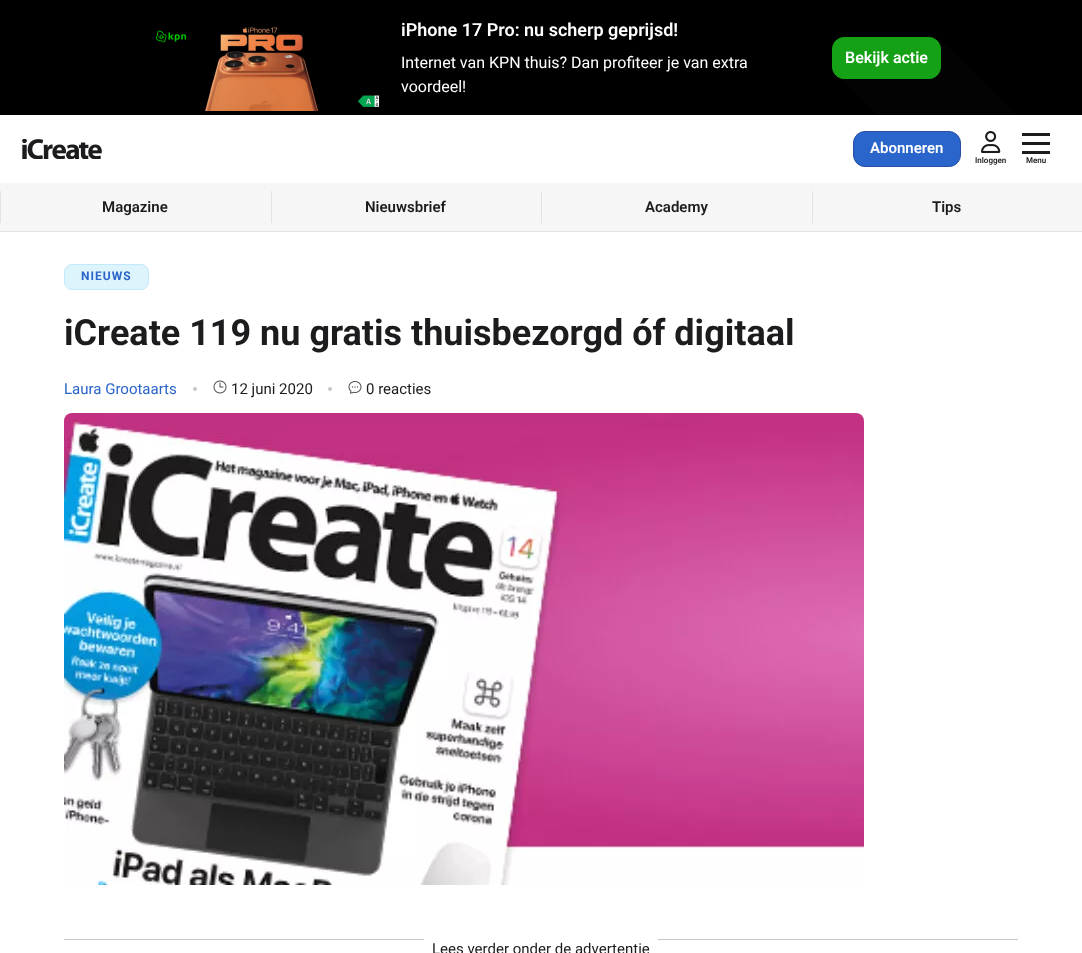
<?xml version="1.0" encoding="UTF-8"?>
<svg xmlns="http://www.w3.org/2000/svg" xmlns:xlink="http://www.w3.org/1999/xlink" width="1082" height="953">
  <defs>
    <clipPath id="clip1"><rect width="1082" height="115" /></clipPath>
  </defs>
  <rect width="100%" height="100%" fill="#ffffff" />
  <rect width="1082" height="115" fill="#000000" />
  <image x="155" y="27" width="225" height="84" xlink:href="image1.png" />
  <g clip-path="url(#clip1)">
    <path d="M 832 70 h 109 l 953 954 h -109 z" fill="#030303" />
    <path d="M 844 36 h 85 c 4 0 12 4 16 8 l 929 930 c 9 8 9 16 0 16 h -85 c -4 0 -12 -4 -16 -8 l -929 -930 c -9 -8 -9 -16 0 -16 z" fill="#030303" />
  </g>
  <rect x="832.5" y="37.5" width="108" height="41" rx="11.5" fill="#15a115" stroke="#15a115" />
  <rect y="231" width="1082" height="1" fill="#e2e3e5" />
  <image x="22" y="139" width="80" height="20" xlink:href="image2.png" />
  <rect x="853.5" y="131.5" width="107" height="35" rx="11.5" fill="#2a65cb" stroke="#284da4" />
  <image x="981" y="131" width="20" height="22" xlink:href="image3.png" />
  <rect x="1022" y="133" width="28" height="3" fill="#1c1c1e" />
  <rect x="1022" y="142" width="28" height="3" fill="#1c1c1e" />
  <rect x="1022" y="151" width="28" height="3" fill="#1c1c1e" />
  <rect y="183" width="1082" height="48" fill="#f6f6f7" />
  <rect y="191" width="1" height="32" fill="#e2e3e5" />
  <rect x="271" y="191" width="1" height="32" fill="#e2e3e5" />
  <rect x="541" y="191" width="1" height="32" fill="#e2e3e5" />
  <rect x="812" y="191" width="1" height="32" fill="#e2e3e5" />
  <rect x="64.5" y="264.5" width="84" height="25" rx="7.5" fill="#def4fc" stroke="#c2e9fa" />
  <circle cx="195" cy="389" r="2" fill="#c5c6ca" />
  <image x="213" y="380" width="14" height="14" xlink:href="image4.png" />
  <circle cx="330" cy="389" r="2" fill="#c5c6ca" />
  <image x="348" y="381" width="14" height="13" xlink:href="image5.png" />
  <image x="64" y="413" width="800" height="472" xlink:href="image6.png" />
  <rect x="64" y="939" width="360" height="1" fill="#c5c6ca" />
  <rect x="658" y="939" width="360" height="1" fill="#c5c6ca" />
  <text x="401" y="36" style="font-family: Roboto; font-size: 18px; font-weight: 600; fill: #ffffff">iPhone 17 Pro: nu scherp geprijsd!</text>
  <text x="401" y="68" style="font-family: Roboto; font-size: 16px; fill: #ffffff">Internet van KPN thuis? Dan profiteer je van extra</text>
  <text x="401" y="92" style="font-family: Roboto; font-size: 16px; fill: #ffffff">voordeel!</text>
  <text x="845" y="63" style="font-family: Roboto; font-size: 16px; font-weight: 600; fill: #ffffff">Bekijk actie</text>
  <text x="870" y="153" style="font-family: Roboto; font-size: 15px; font-weight: 600; fill: #ffffff">Abonneren</text>
  <text x="975" y="163" style="font-family: Roboto; font-size: 8px; font-weight: 600; fill: #1c1c1e">Inloggen</text>
  <text x="1026" y="163" style="font-family: Roboto; font-size: 8px; font-weight: 600; fill: #1c1c1e">Menu</text>
  <text x="102" y="212" style="font-family: Roboto; font-size: 15px; font-weight: 600; fill: #1c1c1e">Magazine</text>
  <text x="365" y="212" style="font-family: Roboto; font-size: 15px; font-weight: 600; fill: #1c1c1e">Nieuwsbrief</text>
  <text x="645" y="212" style="font-family: Roboto; font-size: 15px; font-weight: 600; fill: #1c1c1e">Academy</text>
  <text x="932" y="212" style="font-family: Roboto; font-size: 15px; font-weight: 600; fill: #1c1c1e">Tips</text>
  <text x="81" y="280" style="font-family: Roboto; font-size: 12px; font-weight: bold; letter-spacing: 1px; fill: #2a65cb">NIEUWS</text>
  <text x="64" y="345" style="font-family: Roboto; font-size: 36px; font-weight: bold; fill: #1c1c1e">iCreate 119 nu gratis thuisbezorgd óf digitaal</text>
  <text x="64" y="394" style="font-family: Roboto; font-size: 15px; fill: #2a65cb">Laura Grootaarts</text>
  <text x="231" y="394" style="font-family: Roboto; font-size: 15px; fill: #1c1c1e">12 juni 2020</text>
  <text x="366" y="394" style="font-family: Roboto; font-size: 15px; fill: #1c1c1e">0 reacties</text>
  <text x="432" y="954" style="font-family: Roboto; font-size: 15px; fill: #1c1c1e">Lees verder onder de advertentie</text>
</svg>
